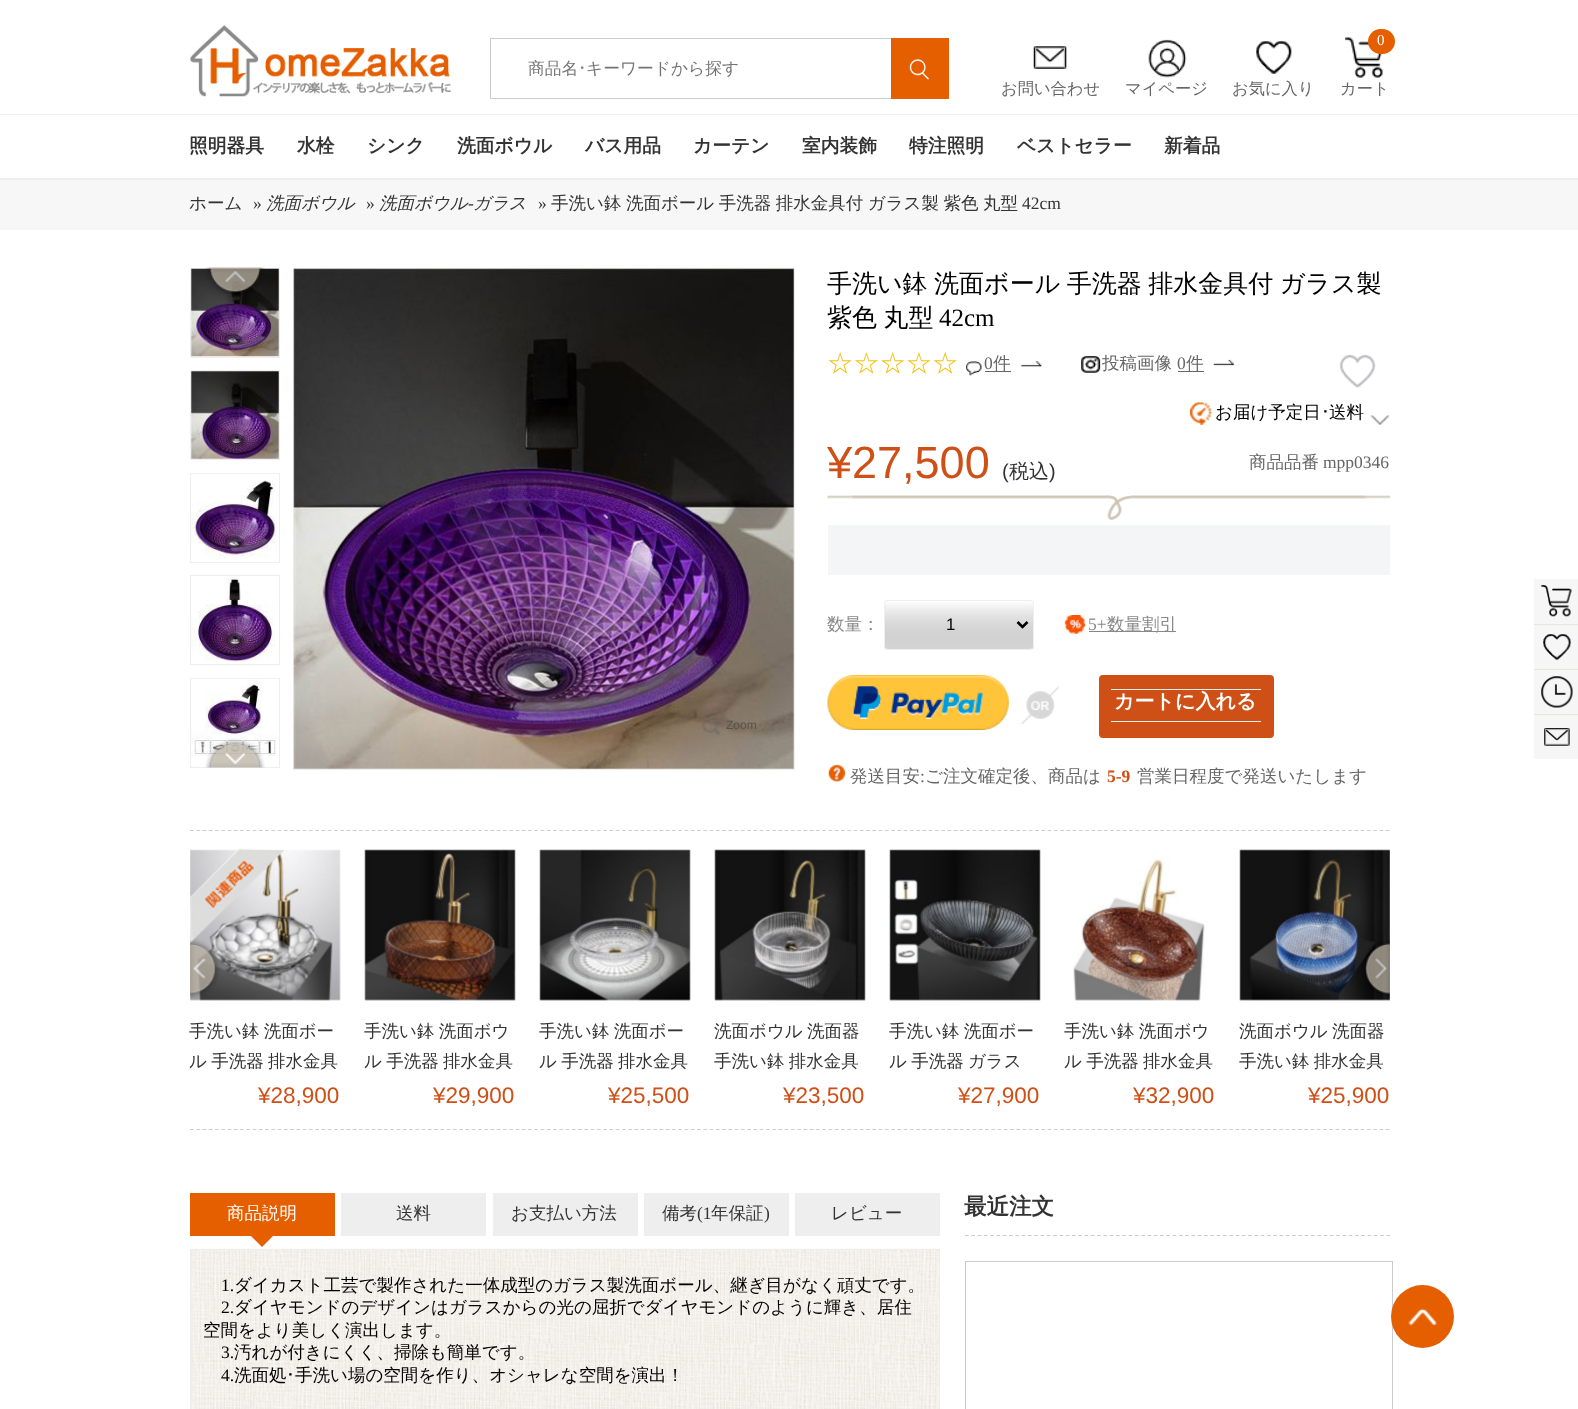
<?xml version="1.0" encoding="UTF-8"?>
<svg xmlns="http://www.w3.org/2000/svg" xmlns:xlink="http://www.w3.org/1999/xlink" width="1578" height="1409">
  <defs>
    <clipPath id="clip1"><rect x="884" y="600" width="150" height="50" rx="4" /></clipPath>
    <linearGradient id="g1" gradientUnits="userSpaceOnUse" x1="959" y1="601" x2="959" y2="649"><stop offset="0" stop-color="#ffffff" /><stop offset="1" stop-color="#999999" stop-opacity="0.31" /></linearGradient>
  </defs>
  <rect width="100%" height="100%" fill="#ffffff" />
  <image x="190" y="25" width="261" height="72" xlink:href="image1.png" />
  <rect x="490" y="38" width="401" height="1" fill="#cccccc" />
  <rect x="490" y="98" width="401" height="1" fill="#cccccc" />
  <rect x="490" y="38" width="1" height="61" fill="#cccccc" />
  <rect x="891" y="38" width="58" height="61" fill="#e55f00" />
  <image x="909" y="59" width="20" height="21" xlink:href="image2.png" />
  <image x="1033" y="46" width="34" height="23" xlink:href="image3.png" />
  <image x="1148" y="39" width="39" height="39" xlink:href="image4.png" />
  <image x="1256" y="41" width="36" height="33" xlink:href="image5.png" />
  <image x="1345" y="37" width="38" height="41" xlink:href="image6.png" />
  <rect x="1368" y="29" width="27" height="25" rx="12.5" fill="#e55f00" />
  <rect y="114" width="1578" height="1" fill="#eeeeee" />
  <rect y="178" width="1578" height="2" fill="#eeeeee" />
  <rect y="180" width="1578" height="50" fill="#f7f7f7" />
  <rect x="190.5" y="268.5" width="89" height="89" fill="none" stroke="#eeeeee" />
  <image x="191" y="268" width="88" height="89" xlink:href="image8.png" />
  <image x="205" y="267" width="60" height="27" xlink:href="image7.png" />
  <rect x="190.5" y="370.5" width="89" height="89" fill="none" stroke="#eeeeee" />
  <image x="191" y="371" width="88" height="88" xlink:href="image9.png" />
  <rect x="190.5" y="473.5" width="89" height="89" fill="none" stroke="#eeeeee" />
  <image x="191" y="473" width="87" height="85" xlink:href="image10.png" />
  <rect x="190.5" y="575.5" width="89" height="89" fill="none" stroke="#eeeeee" />
  <image x="191" y="576" width="85" height="88" xlink:href="image11.png" />
  <rect x="190.5" y="678.5" width="89" height="89" fill="none" stroke="#eeeeee" />
  <image x="191" y="678" width="87" height="78" xlink:href="image12.png" />
  <image x="205" y="738" width="60" height="30" xlink:href="image13.png" />
  <rect x="293.5" y="268.5" width="501" height="501" fill="none" stroke="#eeeeee" />
  <image x="293" y="268" width="501" height="501" xlink:href="image14.png" />
  <image x="702" y="717" width="18" height="18" xlink:href="image15.png" />
  <image x="966" y="361" width="16" height="15" xlink:href="image16.png" />
  <rect x="985" y="371" width="9" height="1" fill="#666666" />
  <rect x="994" y="371" width="17" height="1" fill="#666666" />
  <image x="1021" y="361" width="21" height="6" xlink:href="image17.png" />
  <image x="1081" y="356" width="20" height="17" xlink:href="image18.png" />
  <rect x="1178" y="371" width="26" height="1" fill="#666666" />
  <image x="1213" y="359" width="21" height="7" xlink:href="image19.png" />
  <image x="1339" y="354" width="37" height="34" xlink:href="image20.png" />
  <image x="1190" y="402" width="22" height="23" xlink:href="image21.png" />
  <image x="1370" y="415" width="20" height="10" xlink:href="image22.png" />
  <image x="827" y="495" width="563" height="25" xlink:href="image23.png" />
  <image x="852" y="495" width="513" height="25" xlink:href="image24.png" />
  <rect x="828" y="525" width="562" height="50" fill="#f4f5f6" />
  <rect x="884" y="600" width="150" height="50" rx="4" fill="#efefef" />
  <g clip-path="url(#clip1)">
    <rect x="884" y="601" width="150" height="48" fill="url(#g1)" />
  </g>
  <rect x="884.5" y="600.5" width="149" height="49" rx="3.5" fill="none" stroke="#eeeeee" />
  <path d="M 1017.5 622 l 5 5 l 5 -5" fill="none" stroke="#000000" stroke-width="2.5" />
  <image x="1063" y="615" width="23" height="19" xlink:href="image25.png" />
  <rect x="1089" y="631" width="87" height="1" fill="#888888" />
  <image x="1021" y="686" width="38" height="38" xlink:href="image26.png" />
  <image x="827" y="675" width="182" height="55" xlink:href="image27.png" />
  <rect x="1099" y="675" width="175" height="63" rx="4" fill="#cf5017" />
  <rect x="1111" y="689" width="150" height="1" fill="#eeeeee" />
  <rect x="1111" y="721" width="150" height="1" fill="#eeeeee" />
  <image x="828" y="764" width="18" height="18" xlink:href="image28.png" />
  <path d="M 190 830.5 h 1200" fill="none" stroke="#cccccc" stroke-width="1.2" stroke-dasharray="3.75 2.51" />
  <path d="M 190 1129.5 h 1200" fill="none" stroke="#cccccc" stroke-width="1.2" stroke-dasharray="3.75 2.51" />
  <image x="190" y="849" width="151" height="152" xlink:href="image32.png" />
  <image x="190" y="939" width="30" height="60" xlink:href="image30.png" />
  <image x="190" y="848" width="94" height="95" xlink:href="image29.png" />
  <image x="1239" y="849" width="151" height="152" xlink:href="image38.png" />
  <image x="1365" y="940" width="25" height="58" xlink:href="image31.png" />
  <image x="364" y="849" width="152" height="152" xlink:href="image33.png" />
  <image x="539" y="849" width="152" height="152" xlink:href="image34.png" />
  <image x="714" y="849" width="152" height="152" xlink:href="image35.png" />
  <image x="889" y="849" width="152" height="152" xlink:href="image36.png" />
  <image x="1073" y="858" width="132" height="143" xlink:href="image37.png" />
  <path d="M 262 1197 l 25 25 l -25 25 l -25 -25 z" fill="#e55f00" />
  <rect x="190" y="1193" width="145" height="43" fill="#e55f00" />
  <rect x="341" y="1193" width="145" height="43" fill="#eeeeee" />
  <rect x="493" y="1193" width="145" height="43" fill="#eeeeee" />
  <rect x="644" y="1193" width="145" height="43" fill="#eeeeee" />
  <rect x="795" y="1193" width="145" height="43" fill="#eeeeee" />
  <image x="190" y="1248" width="750" height="161" xlink:href="image39.png" />
  <rect x="190.5" y="1249.5" width="749" height="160" fill="none" stroke="#eeeeee" />
  <path d="M 965 1235.5 h 425" fill="none" stroke="#cccccc" stroke-width="1.2" stroke-dasharray="3.75 2.54" />
  <rect x="965.5" y="1261.5" width="427" height="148" fill="none" stroke="#cccccc" />
  <circle cx="1422.5" cy="1316.5" r="31.5" fill="#e55f00" />
  <image x="1408" y="1308" width="29" height="18" xlink:href="image40.png" />
  <rect x="1534" y="579" width="44" height="45" fill="#f6f6f6" />
  <image x="1541" y="585" width="31" height="32" xlink:href="image41.png" />
  <rect x="1534" y="625" width="44" height="44" fill="#f6f6f6" />
  <rect x="1534" y="624" width="44" height="1" fill="#e8e4df" />
  <image x="1543" y="634" width="28" height="26" xlink:href="image42.png" />
  <rect x="1534" y="670" width="44" height="44" fill="#f6f6f6" />
  <rect x="1534" y="669" width="44" height="1" fill="#e8e4df" />
  <image x="1541" y="676" width="32" height="32" xlink:href="image43.png" />
  <rect x="1534" y="715" width="44" height="44" fill="#f6f6f6" />
  <rect x="1534" y="714" width="44" height="1" fill="#e8e4df" />
  <image x="1544" y="728" width="26" height="18" xlink:href="image44.png" />
  <text x="528" y="74" style="font-family: WenQuanYi Zen Hei; font-size: 16.75px; font-weight: 500; fill: #757575">商品名</text>
  <text x="578" y="74" style="font-family: IPAPGothic; font-size: 16.75px; fill: #757575">･</text>
  <text x="586" y="74" style="font-family: WenQuanYi Zen Hei; font-size: 16.75px; font-weight: 500; fill: #757575">キーワードから探す</text>
  <text x="1001" y="94" style="font-family: WenQuanYi Zen Hei; font-size: 16.25px; font-weight: 500; fill: #666666">お問い合わせ</text>
  <text x="1125" y="94" style="font-family: WenQuanYi Zen Hei; font-size: 16.25px; font-weight: 500; fill: #666666">マイページ</text>
  <text x="1232" y="94" style="font-family: WenQuanYi Zen Hei; font-size: 16.25px; font-weight: 500; fill: #666666">お気に入り</text>
  <text x="1377" y="45" style="font-family: Liberation Serif; font-size: 15px; fill: #ffffff">0</text>
  <text x="1340" y="94" style="font-family: WenQuanYi Zen Hei; font-size: 16.25px; font-weight: 500; fill: #666666">カート</text>
  <text x="189" y="152" style="font-family: WenQuanYi Zen Hei; font-size: 18.75px; font-weight: bold; fill: #333333">照明器具</text>
  <text x="297" y="152" style="font-family: WenQuanYi Zen Hei; font-size: 18.75px; font-weight: bold; fill: #333333">水栓</text>
  <text x="367" y="152" style="font-family: WenQuanYi Zen Hei; font-size: 18.75px; font-weight: bold; fill: #333333">シンク</text>
  <text x="457" y="152" style="font-family: WenQuanYi Zen Hei; font-size: 18.75px; font-weight: bold; fill: #333333">洗面ボウル</text>
  <text x="585" y="152" style="font-family: WenQuanYi Zen Hei; font-size: 18.75px; font-weight: bold; fill: #333333">バス用品</text>
  <text x="693" y="152" style="font-family: WenQuanYi Zen Hei; font-size: 18.75px; font-weight: bold; fill: #333333">カーテン</text>
  <text x="802" y="152" style="font-family: WenQuanYi Zen Hei; font-size: 18.75px; font-weight: bold; fill: #333333">室内装飾</text>
  <text x="909" y="152" style="font-family: WenQuanYi Zen Hei; font-size: 18.75px; font-weight: bold; fill: #333333">特注照明</text>
  <text x="1017" y="152" style="font-family: WenQuanYi Zen Hei; font-size: 18.75px; font-weight: bold; fill: #333333">ベストセラー</text>
  <text x="1164" y="152" style="font-family: WenQuanYi Zen Hei; font-size: 18.75px; font-weight: bold; fill: #333333">新着品</text>
  <text x="189" y="209" style="font-family: WenQuanYi Zen Hei; font-size: 17.5px; font-weight: 500; fill: #333333">ホーム</text>
  <text x="253" y="209" style="font-family: Liberation Serif; font-size: 17.5px; fill: #333333">»</text>
  <text x="266" y="209" style="font-family: WenQuanYi Zen Hei; font-size: 17.5px; font-weight: 500; font-style: italic; fill: #333333">洗面ボウル</text>
  <text x="366" y="209" style="font-family: Liberation Serif; font-size: 17.5px; fill: #333333">»</text>
  <text x="379" y="209" style="font-family: WenQuanYi Zen Hei; font-size: 17.5px; font-weight: 500; font-style: italic; fill: #333333">洗面ボウル</text>
  <text x="468" y="209" style="font-family: Liberation Serif; font-size: 17.5px; font-style: italic; fill: #333333">-</text>
  <text x="473" y="209" style="font-family: WenQuanYi Zen Hei; font-size: 17.5px; font-weight: 500; font-style: italic; fill: #333333">ガラス</text>
  <text x="538" y="209" style="font-family: Liberation Serif; font-size: 17.5px; fill: #333333">»</text>
  <text x="551" y="209" word-spacing="-0.75" style="font-family: WenQuanYi Zen Hei; font-size: 17.5px; font-weight: 500; fill: #333333">手洗い鉢 洗面ボール 手洗器 排水金具付 ガラス製 紫色 丸型</text>
  <text x="1022" y="209" style="font-family: Liberation Serif; font-size: 17.5px; fill: #333333">42cm</text>
  <text x="726" y="729" style="font-family: Liberation Sans; font-size: 12px; fill: #59534b">Zoom</text>
  <text x="827" y="292" word-spacing="-1" style="font-family: WenQuanYi Zen Hei; font-size: 25px; font-weight: 500; fill: #000000">手洗い鉢 洗面ボール 手洗器 排水金具付 ガラス製</text>
  <text x="827" y="326" word-spacing="-1" style="font-family: WenQuanYi Zen Hei; font-size: 25px; font-weight: 500; fill: #000000">紫色 丸型</text>
  <text x="939" y="326" style="font-family: Liberation Serif; font-size: 25px; fill: #000000">42cm</text>
  <text x="827" y="372" style="font-family: WenQuanYi Zen Hei; font-size: 26.25px; font-weight: 500; fill: #f4c214">☆☆☆☆☆</text>
  <text x="984" y="369" style="font-family: Liberation Serif; font-size: 17.5px; fill: #666666">0</text>
  <text x="993" y="369" style="font-family: WenQuanYi Zen Hei; font-size: 17.5px; font-weight: 500; fill: #666666">件</text>
  <text x="1102" y="369" style="font-family: WenQuanYi Zen Hei; font-size: 17.5px; font-weight: 500; fill: #666666">投稿画像</text>
  <text x="1177" y="369" style="font-family: Liberation Serif; font-size: 17.5px; fill: #666666">0</text>
  <text x="1186" y="369" style="font-family: WenQuanYi Zen Hei; font-size: 17.5px; font-weight: 500; fill: #666666">件</text>
  <text x="1215" y="418" style="font-family: WenQuanYi Zen Hei; font-size: 17.5px; font-weight: 500; fill: #000000">お届け予定日</text>
  <text x="1321" y="418" style="font-family: IPAPGothic; font-size: 17.5px; fill: #000000">･</text>
  <text x="1329" y="418" style="font-family: WenQuanYi Zen Hei; font-size: 17.5px; font-weight: 500; fill: #000000">送料</text>
  <text x="827" y="478" style="font-family: Liberation Sans; font-size: 45px; fill: #cf5017">¥27,500</text>
  <text x="1002" y="478" style="font-family: Liberation Sans; font-size: 20px; fill: #333333">(</text>
  <text x="1009" y="478" style="font-family: WenQuanYi Zen Hei; font-size: 20px; font-weight: 500; fill: #333333">税込</text>
  <text x="1049" y="478" style="font-family: Liberation Sans; font-size: 20px; fill: #333333">)</text>
  <text x="1249" y="468" style="font-family: WenQuanYi Zen Hei; font-size: 17.5px; font-weight: 500; fill: #666666">商品品番</text>
  <text x="1323" y="468" style="font-family: Liberation Serif; font-size: 17.5px; fill: #666666">mpp0346</text>
  <text x="827" y="630" style="font-family: WenQuanYi Zen Hei; font-size: 17.5px; font-weight: 500; fill: #888888">数量：</text>
  <text x="946" y="630" style="font-family: Liberation Sans; font-size: 16.75px; fill: #000000">1</text>
  <text x="1088" y="630" style="font-family: Liberation Serif; font-size: 17.5px; fill: #888888">5+</text>
  <text x="1107" y="630" style="font-family: WenQuanYi Zen Hei; font-size: 17.5px; font-weight: 500; fill: #888888">数量割引</text>
  <text x="1114" y="708" style="font-family: WenQuanYi Zen Hei; font-size: 20px; font-weight: bold; fill: #ffffff">カートに入れる</text>
  <text x="850" y="782" style="font-family: WenQuanYi Zen Hei; font-size: 17.5px; font-weight: 500; fill: #666666">発送目安</text>
  <text x="920" y="782" style="font-family: Liberation Serif; font-size: 17.5px; fill: #666666">:</text>
  <text x="925" y="782" style="font-family: WenQuanYi Zen Hei; font-size: 17.5px; font-weight: 500; fill: #666666">ご注文確定後、商品は</text>
  <text x="1107" y="782" style="font-family: Liberation Serif; font-size: 17.5px; font-weight: bold; fill: #cf5017">5-9</text>
  <text x="1137" y="782" style="font-family: WenQuanYi Zen Hei; font-size: 17.5px; font-weight: 500; fill: #666666">営業日程度で発送いたします</text>
  <text x="189" y="1037" word-spacing="-1" style="font-family: WenQuanYi Zen Hei; font-size: 17.5px; font-weight: 500; fill: #333333">手洗い鉢 洗面ボー</text>
  <text x="189" y="1067" word-spacing="-1" style="font-family: WenQuanYi Zen Hei; font-size: 17.5px; font-weight: 500; fill: #333333">ル 手洗器 排水金具</text>
  <text x="258" y="1103" style="font-family: Liberation Sans; font-size: 22.5px; fill: #cf5017">¥28,900</text>
  <text x="364" y="1037" word-spacing="-1" style="font-family: WenQuanYi Zen Hei; font-size: 17.5px; font-weight: 500; fill: #333333">手洗い鉢 洗面ボウ</text>
  <text x="364" y="1067" word-spacing="-1" style="font-family: WenQuanYi Zen Hei; font-size: 17.5px; font-weight: 500; fill: #333333">ル 手洗器 排水金具</text>
  <text x="433" y="1103" style="font-family: Liberation Sans; font-size: 22.5px; fill: #cf5017">¥29,900</text>
  <text x="539" y="1037" word-spacing="-1" style="font-family: WenQuanYi Zen Hei; font-size: 17.5px; font-weight: 500; fill: #333333">手洗い鉢 洗面ボー</text>
  <text x="539" y="1067" word-spacing="-1" style="font-family: WenQuanYi Zen Hei; font-size: 17.5px; font-weight: 500; fill: #333333">ル 手洗器 排水金具</text>
  <text x="608" y="1103" style="font-family: Liberation Sans; font-size: 22.5px; fill: #cf5017">¥25,500</text>
  <text x="714" y="1037" word-spacing="-1" style="font-family: WenQuanYi Zen Hei; font-size: 17.5px; font-weight: 500; fill: #333333">洗面ボウル 洗面器</text>
  <text x="714" y="1067" word-spacing="-1" style="font-family: WenQuanYi Zen Hei; font-size: 17.5px; font-weight: 500; fill: #333333">手洗い鉢 排水金具</text>
  <text x="783" y="1103" style="font-family: Liberation Sans; font-size: 22.5px; fill: #cf5017">¥23,500</text>
  <text x="889" y="1037" word-spacing="-1" style="font-family: WenQuanYi Zen Hei; font-size: 17.5px; font-weight: 500; fill: #333333">手洗い鉢 洗面ボー</text>
  <text x="889" y="1067" word-spacing="-1" style="font-family: WenQuanYi Zen Hei; font-size: 17.5px; font-weight: 500; fill: #333333">ル 手洗器 ガラス</text>
  <text x="958" y="1103" style="font-family: Liberation Sans; font-size: 22.5px; fill: #cf5017">¥27,900</text>
  <text x="1064" y="1037" word-spacing="-1" style="font-family: WenQuanYi Zen Hei; font-size: 17.5px; font-weight: 500; fill: #333333">手洗い鉢 洗面ボウ</text>
  <text x="1064" y="1067" word-spacing="-1" style="font-family: WenQuanYi Zen Hei; font-size: 17.5px; font-weight: 500; fill: #333333">ル 手洗器 排水金具</text>
  <text x="1133" y="1103" style="font-family: Liberation Sans; font-size: 22.5px; fill: #cf5017">¥32,900</text>
  <text x="1239" y="1037" word-spacing="-1" style="font-family: WenQuanYi Zen Hei; font-size: 17.5px; font-weight: 500; fill: #333333">洗面ボウル 洗面器</text>
  <text x="1239" y="1067" word-spacing="-1" style="font-family: WenQuanYi Zen Hei; font-size: 17.5px; font-weight: 500; fill: #333333">手洗い鉢 排水金具</text>
  <text x="1308" y="1103" style="font-family: Liberation Sans; font-size: 22.5px; fill: #cf5017">¥25,900</text>
  <text x="227" y="1219" style="font-family: WenQuanYi Zen Hei; font-size: 17.5px; font-weight: 500; fill: #ffffff">商品説明</text>
  <text x="396" y="1219" style="font-family: WenQuanYi Zen Hei; font-size: 17.5px; font-weight: 500; fill: #333333">送料</text>
  <text x="511" y="1219" style="font-family: WenQuanYi Zen Hei; font-size: 17.5px; font-weight: 500; fill: #333333">お支払い方法</text>
  <text x="662" y="1219" style="font-family: WenQuanYi Zen Hei; font-size: 17.5px; font-weight: 500; fill: #333333">備考</text>
  <text x="697" y="1219" style="font-family: Liberation Serif; font-size: 17.5px; fill: #333333">(1</text>
  <text x="711" y="1219" style="font-family: WenQuanYi Zen Hei; font-size: 17.5px; font-weight: 500; fill: #333333">年保証</text>
  <text x="764" y="1219" style="font-family: Liberation Serif; font-size: 17.5px; fill: #333333">)</text>
  <text x="831" y="1219" style="font-family: WenQuanYi Zen Hei; font-size: 17.5px; font-weight: 500; fill: #333333">レビュー</text>
  <text x="221" y="1291" style="font-family: Liberation Serif; font-size: 17.5px; fill: #000000">1.</text>
  <text x="234" y="1291" style="font-family: WenQuanYi Zen Hei; font-size: 17.5px; font-weight: 500; fill: #000000">ダイカスト工芸で製作された一体成型のガラス製洗面ボール、継ぎ目がなく頑丈です。</text>
  <text x="221" y="1313" style="font-family: Liberation Serif; font-size: 17.5px; fill: #000000">2.</text>
  <text x="234" y="1313" style="font-family: WenQuanYi Zen Hei; font-size: 17.5px; font-weight: 500; fill: #000000">ダイヤモンドのデザインはガラスからの光の屈折でダイヤモンドのように輝き、居住</text>
  <text x="203" y="1336" style="font-family: WenQuanYi Zen Hei; font-size: 17.5px; font-weight: 500; fill: #000000">空間をより美しく演出します。</text>
  <text x="221" y="1358" style="font-family: Liberation Serif; font-size: 17.5px; fill: #000000">3.</text>
  <text x="234" y="1358" style="font-family: WenQuanYi Zen Hei; font-size: 17.5px; font-weight: 500; fill: #000000">汚れが付きにくく、掃除も簡単です。</text>
  <text x="221" y="1381" style="font-family: Liberation Serif; font-size: 17.5px; fill: #000000">4.</text>
  <text x="234" y="1381" style="font-family: WenQuanYi Zen Hei; font-size: 17.5px; font-weight: 500; fill: #000000">洗面処</text>
  <text x="286" y="1381" style="font-family: IPAPGothic; font-size: 17.5px; fill: #000000">･</text>
  <text x="295" y="1381" style="font-family: WenQuanYi Zen Hei; font-size: 17.5px; font-weight: 500; fill: #000000">手洗い場の空間を作り、オシャレな空間を演出！</text>
  <text x="964" y="1214" style="font-family: WenQuanYi Zen Hei; font-size: 22.5px; font-weight: bold; fill: #333333">最近注文</text>
</svg>
